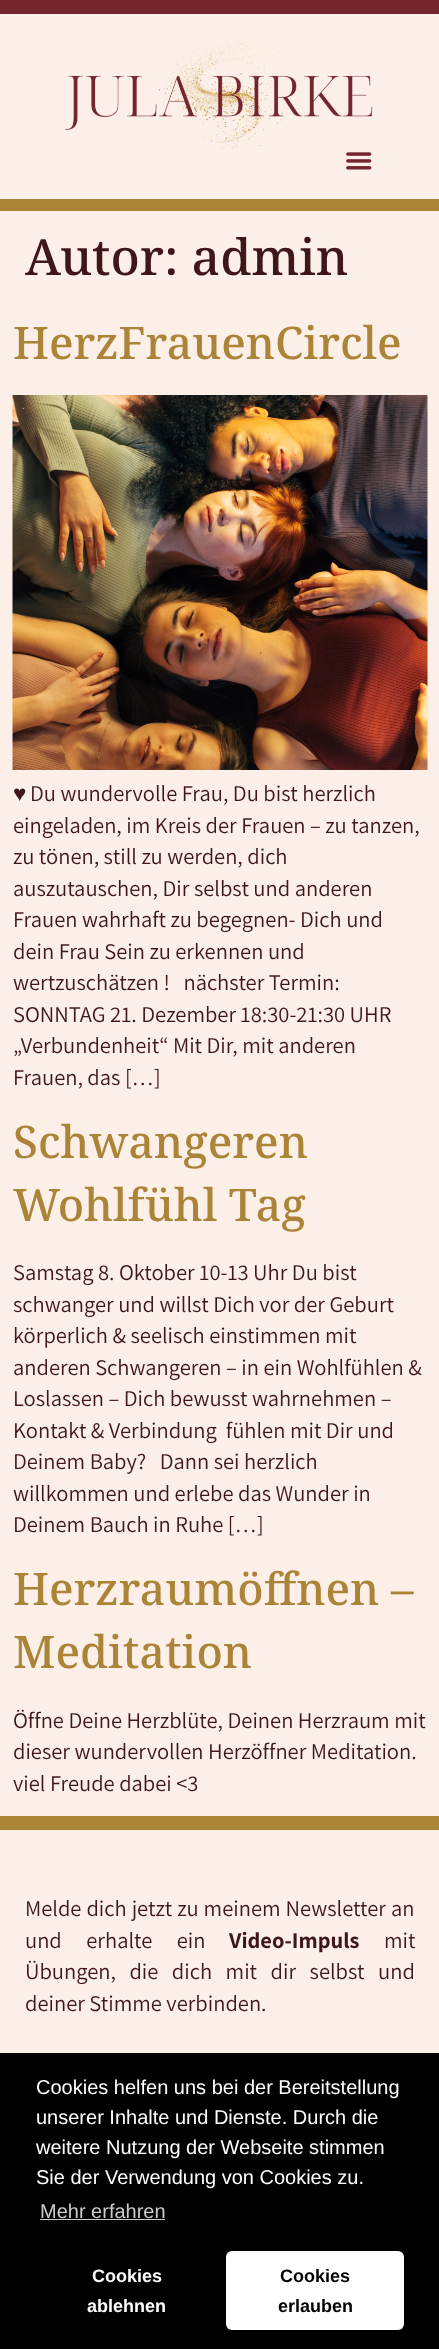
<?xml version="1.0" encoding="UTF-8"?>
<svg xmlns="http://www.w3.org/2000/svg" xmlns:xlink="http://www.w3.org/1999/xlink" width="439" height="2349">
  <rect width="100%" height="100%" fill="#fbefe8" />
  <rect width="439" height="14" fill="#74262f" />
  <image x="65" y="39" width="308" height="111" xlink:href="image1.png" />
  <image x="346" y="152" width="26" height="18" xlink:href="image2.png" />
  <rect y="199" width="439" height="12" fill="#ac8438" />
  <image x="12" y="395" width="416" height="375" xlink:href="image3.png" />
  <rect y="1816" width="439" height="14" fill="#ac8438" />
  <rect y="2053" width="439" height="296" fill="#000000" />
  <rect x="40" y="2219" width="125" height="1" fill="#cccccc" />
  <rect x="226" y="2251" width="178" height="79" rx="6" fill="#ffffff" />
  <text x="25" y="275" style="font-family: Noto Serif; font-size: 50px; font-weight: 500; fill: #3f171b">Autor: admin</text>
  <text x="13" y="359" style="font-family: Noto Serif; font-size: 45px; font-weight: 500; fill: #ac8438">HerzFrauenCircle</text>
  <text x="13" y="801" style="font-family: Liberation Sans; font-size: 22.5px; fill: #3f171b">♥</text>
  <text x="30" y="801" style="font-family: Assistant; font-size: 22.5px; fill: #3f171b">Du wundervolle Frau, Du bist herzlich</text>
  <text x="13" y="833" style="font-family: Assistant; font-size: 22.5px; fill: #3f171b">eingeladen, im Kreis der Frauen – zu tanzen,</text>
  <text x="13" y="864" style="font-family: Assistant; font-size: 22.5px; fill: #3f171b">zu tönen, still zu werden, dich</text>
  <text x="13" y="896" style="font-family: Assistant; font-size: 22.5px; fill: #3f171b">auszutauschen, Dir selbst und anderen</text>
  <text x="13" y="927" style="font-family: Assistant; font-size: 22.5px; fill: #3f171b">Frauen wahrhaft zu begegnen- Dich und</text>
  <text x="13" y="959" style="font-family: Assistant; font-size: 22.5px; fill: #3f171b">dein Frau Sein zu erkennen und</text>
  <text x="13" y="990" style="font-family: Assistant; font-size: 22.5px; fill: #3f171b" xml:space="preserve">wertzuschätzen !   nächster Termin:</text>
  <text x="13" y="1022" style="font-family: Assistant; font-size: 22.5px; fill: #3f171b">SONNTAG 21. Dezember 18:30-21:30 UHR</text>
  <text x="13" y="1053" style="font-family: Assistant; font-size: 22.5px; fill: #3f171b">„Verbundenheit“ Mit Dir, mit anderen</text>
  <text x="13" y="1085" style="font-family: Assistant; font-size: 22.5px; fill: #3f171b">Frauen, das […]</text>
  <text x="13" y="1158" style="font-family: Noto Serif; font-size: 45px; font-weight: 500; fill: #ac8438">Schwangeren</text>
  <text x="13" y="1221" style="font-family: Noto Serif; font-size: 45px; font-weight: 500; fill: #ac8438">Wohlfühl Tag</text>
  <text x="13" y="1280" style="font-family: Assistant; font-size: 22.5px; fill: #3f171b">Samstag 8. Oktober 10-13 Uhr Du bist</text>
  <text x="13" y="1312" style="font-family: Assistant; font-size: 22.5px; fill: #3f171b">schwanger und willst Dich vor der Geburt</text>
  <text x="13" y="1343" style="font-family: Assistant; font-size: 22.5px; fill: #3f171b">körperlich &amp; seelisch einstimmen mit</text>
  <text x="13" y="1375" style="font-family: Assistant; font-size: 22.5px; fill: #3f171b">anderen Schwangeren – in ein Wohlfühlen &amp;</text>
  <text x="13" y="1406" style="font-family: Assistant; font-size: 22.5px; fill: #3f171b">Loslassen – Dich bewusst wahrnehmen –</text>
  <text x="13" y="1438" style="font-family: Assistant; font-size: 22.5px; fill: #3f171b" xml:space="preserve">Kontakt &amp; Verbindung  fühlen mit Dir und</text>
  <text x="13" y="1469" style="font-family: Assistant; font-size: 22.5px; fill: #3f171b" xml:space="preserve">Deinem Baby?   Dann sei herzlich</text>
  <text x="13" y="1501" style="font-family: Assistant; font-size: 22.5px; fill: #3f171b">willkommen und erlebe das Wunder in</text>
  <text x="13" y="1532" style="font-family: Assistant; font-size: 22.5px; fill: #3f171b">Deinem Bauch in Ruhe […]</text>
  <text x="13" y="1605" style="font-family: Noto Serif; font-size: 45px; font-weight: 500; fill: #ac8438">Herzraumöffnen –</text>
  <text x="13" y="1668" style="font-family: Noto Serif; font-size: 45px; font-weight: 500; fill: #ac8438">Meditation</text>
  <text x="13" y="1728" style="font-family: Assistant; font-size: 22.5px; fill: #3f171b">Öffne Deine Herzblüte, Deinen Herzraum mit</text>
  <text x="13" y="1759" style="font-family: Assistant; font-size: 22.5px; fill: #3f171b">dieser wundervollen Herzöffner Meditation.</text>
  <text x="13" y="1791" style="font-family: Assistant; font-size: 22.5px; fill: #3f171b">viel Freude dabei &lt;3</text>
  <text x="25" y="1916" word-spacing="0.5" style="font-family: Assistant; font-size: 22.5px; fill: #3f171b">Melde dich jetzt zu meinem Newsletter an</text>
  <text x="25" y="1948" word-spacing="20" style="font-family: Assistant; font-size: 22.5px; fill: #3f171b">und erhalte ein</text>
  <text x="229" y="1948" style="font-family: Assistant; font-size: 22.5px; font-weight: bold; fill: #3f171b">Video-Impuls</text>
  <text x="384" y="1948" style="font-family: Assistant; font-size: 22.5px; fill: #3f171b">mit</text>
  <text x="25" y="1979" word-spacing="9" style="font-family: Assistant; font-size: 22.5px; fill: #3f171b">Übungen, die dich mit dir selbst und</text>
  <text x="25" y="2011" style="font-family: Assistant; font-size: 22.5px; fill: #3f171b">deiner Stimme verbinden.</text>
  <text x="36" y="2094" style="font-family: Liberation Sans; font-size: 20px; fill: #ffffff">Cookies helfen uns bei der Bereitstellung</text>
  <text x="36" y="2124" style="font-family: Liberation Sans; font-size: 20px; fill: #ffffff">unserer Inhalte und Dienste. Durch die</text>
  <text x="36" y="2154" style="font-family: Liberation Sans; font-size: 20px; fill: #ffffff">weitere Nutzung der Webseite stimmen</text>
  <text x="36" y="2184" style="font-family: Liberation Sans; font-size: 20px; fill: #ffffff">Sie der Verwendung von Cookies zu.</text>
  <text x="40" y="2218" style="font-family: Liberation Sans; font-size: 20px; fill: #cccccc">Mehr erfahren</text>
  <text x="92" y="2282" style="font-family: Liberation Sans; font-size: 18px; font-weight: bold; fill: #ffffff">Cookies</text>
  <text x="87" y="2312" style="font-family: Liberation Sans; font-size: 18px; font-weight: bold; fill: #ffffff">ablehnen</text>
  <text x="280" y="2282" style="font-family: Liberation Sans; font-size: 18px; font-weight: bold; fill: #000000">Cookies</text>
  <text x="278" y="2312" style="font-family: Liberation Sans; font-size: 18px; font-weight: bold; fill: #000000">erlauben</text>
</svg>
